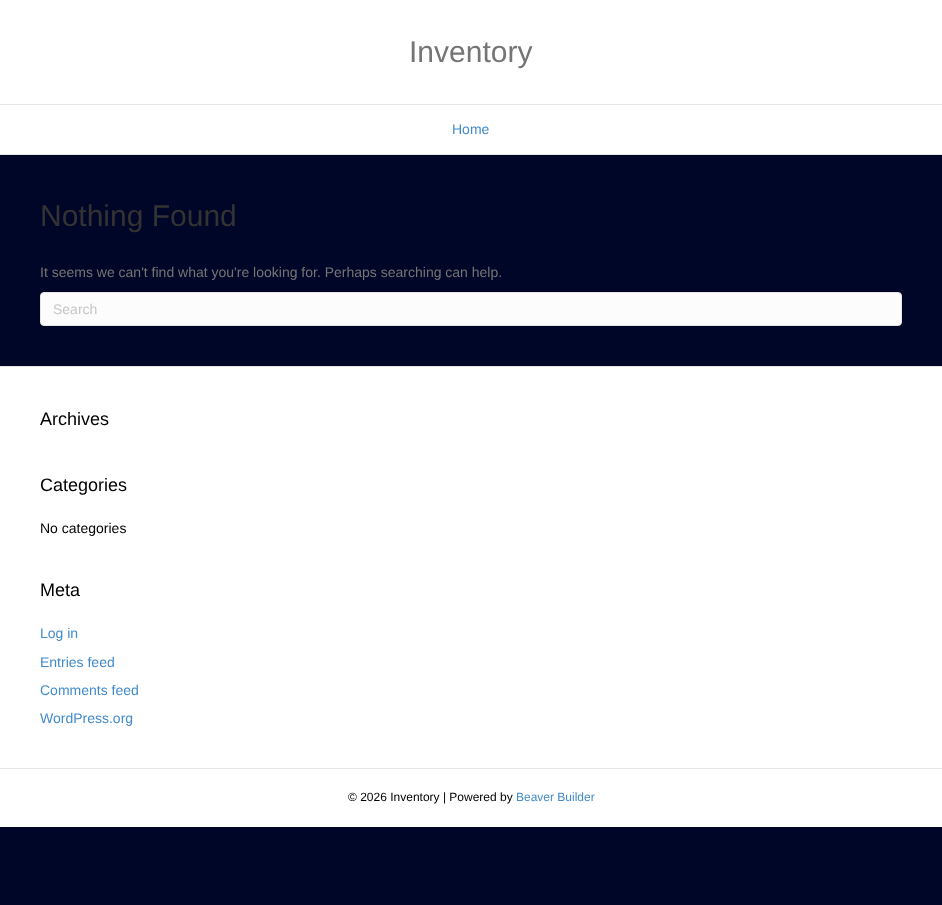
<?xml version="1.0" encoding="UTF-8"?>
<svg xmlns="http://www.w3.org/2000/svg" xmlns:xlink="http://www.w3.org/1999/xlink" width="942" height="905">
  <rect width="100%" height="100%" fill="#000627" />
  <rect width="942" height="154" fill="#ffffff" />
  <rect y="104" width="942" height="1" fill="#e6e6e6" />
  <rect y="154" width="942" height="1" fill="#e6e6e6" />
  <rect x="40.5" y="292.5" width="861" height="33" rx="3.5" fill="#fcfcfc" stroke="#e6e6e6" />
  <rect y="367" width="942" height="401" fill="#ffffff" />
  <rect y="366" width="942" height="1" fill="#e6e6e6" />
  <rect y="769" width="942" height="58" fill="#ffffff" />
  <rect y="768" width="942" height="1" fill="#e6e6e6" />
  <text x="409" y="62" style="font-family: Liberation Sans; font-size: 30px; fill: #757575">Inventory</text>
  <text x="452" y="134" style="font-family: Liberation Sans; font-size: 14px; fill: #428bca">Home</text>
  <text x="40" y="226" style="font-family: Liberation Sans; font-size: 30px; fill: #333333">Nothing Found</text>
  <text x="40" y="277" style="font-family: Liberation Sans; font-size: 14px; fill: #757575">It seems we can't find what you're looking for. Perhaps searching can help.</text>
  <text x="53" y="314" style="font-family: Liberation Sans; font-size: 14px; fill: #c6c6c6">Search</text>
  <text x="40" y="425" style="font-family: Liberation Sans; font-size: 18px; fill: #000000">Archives</text>
  <text x="40" y="491" style="font-family: Liberation Sans; font-size: 18px; fill: #000000">Categories</text>
  <text x="40" y="533" style="font-family: Liberation Sans; font-size: 14px; fill: #000000">No categories</text>
  <text x="40" y="596" style="font-family: Liberation Sans; font-size: 18px; fill: #000000">Meta</text>
  <text x="40" y="638" style="font-family: Liberation Sans; font-size: 14px; fill: #428bca">Log in</text>
  <text x="40" y="667" style="font-family: Liberation Sans; font-size: 14px; fill: #428bca">Entries feed</text>
  <text x="40" y="695" style="font-family: Liberation Sans; font-size: 14px; fill: #428bca">Comments feed</text>
  <text x="40" y="723" style="font-family: Liberation Sans; font-size: 14px; fill: #428bca">WordPress.org</text>
  <text x="348" y="801" style="font-family: Liberation Sans; font-size: 12px; fill: #000000">© 2026 Inventory | Powered by</text>
  <text x="516" y="801" style="font-family: Liberation Sans; font-size: 12px; fill: #428bca">Beaver Builder</text>
</svg>
